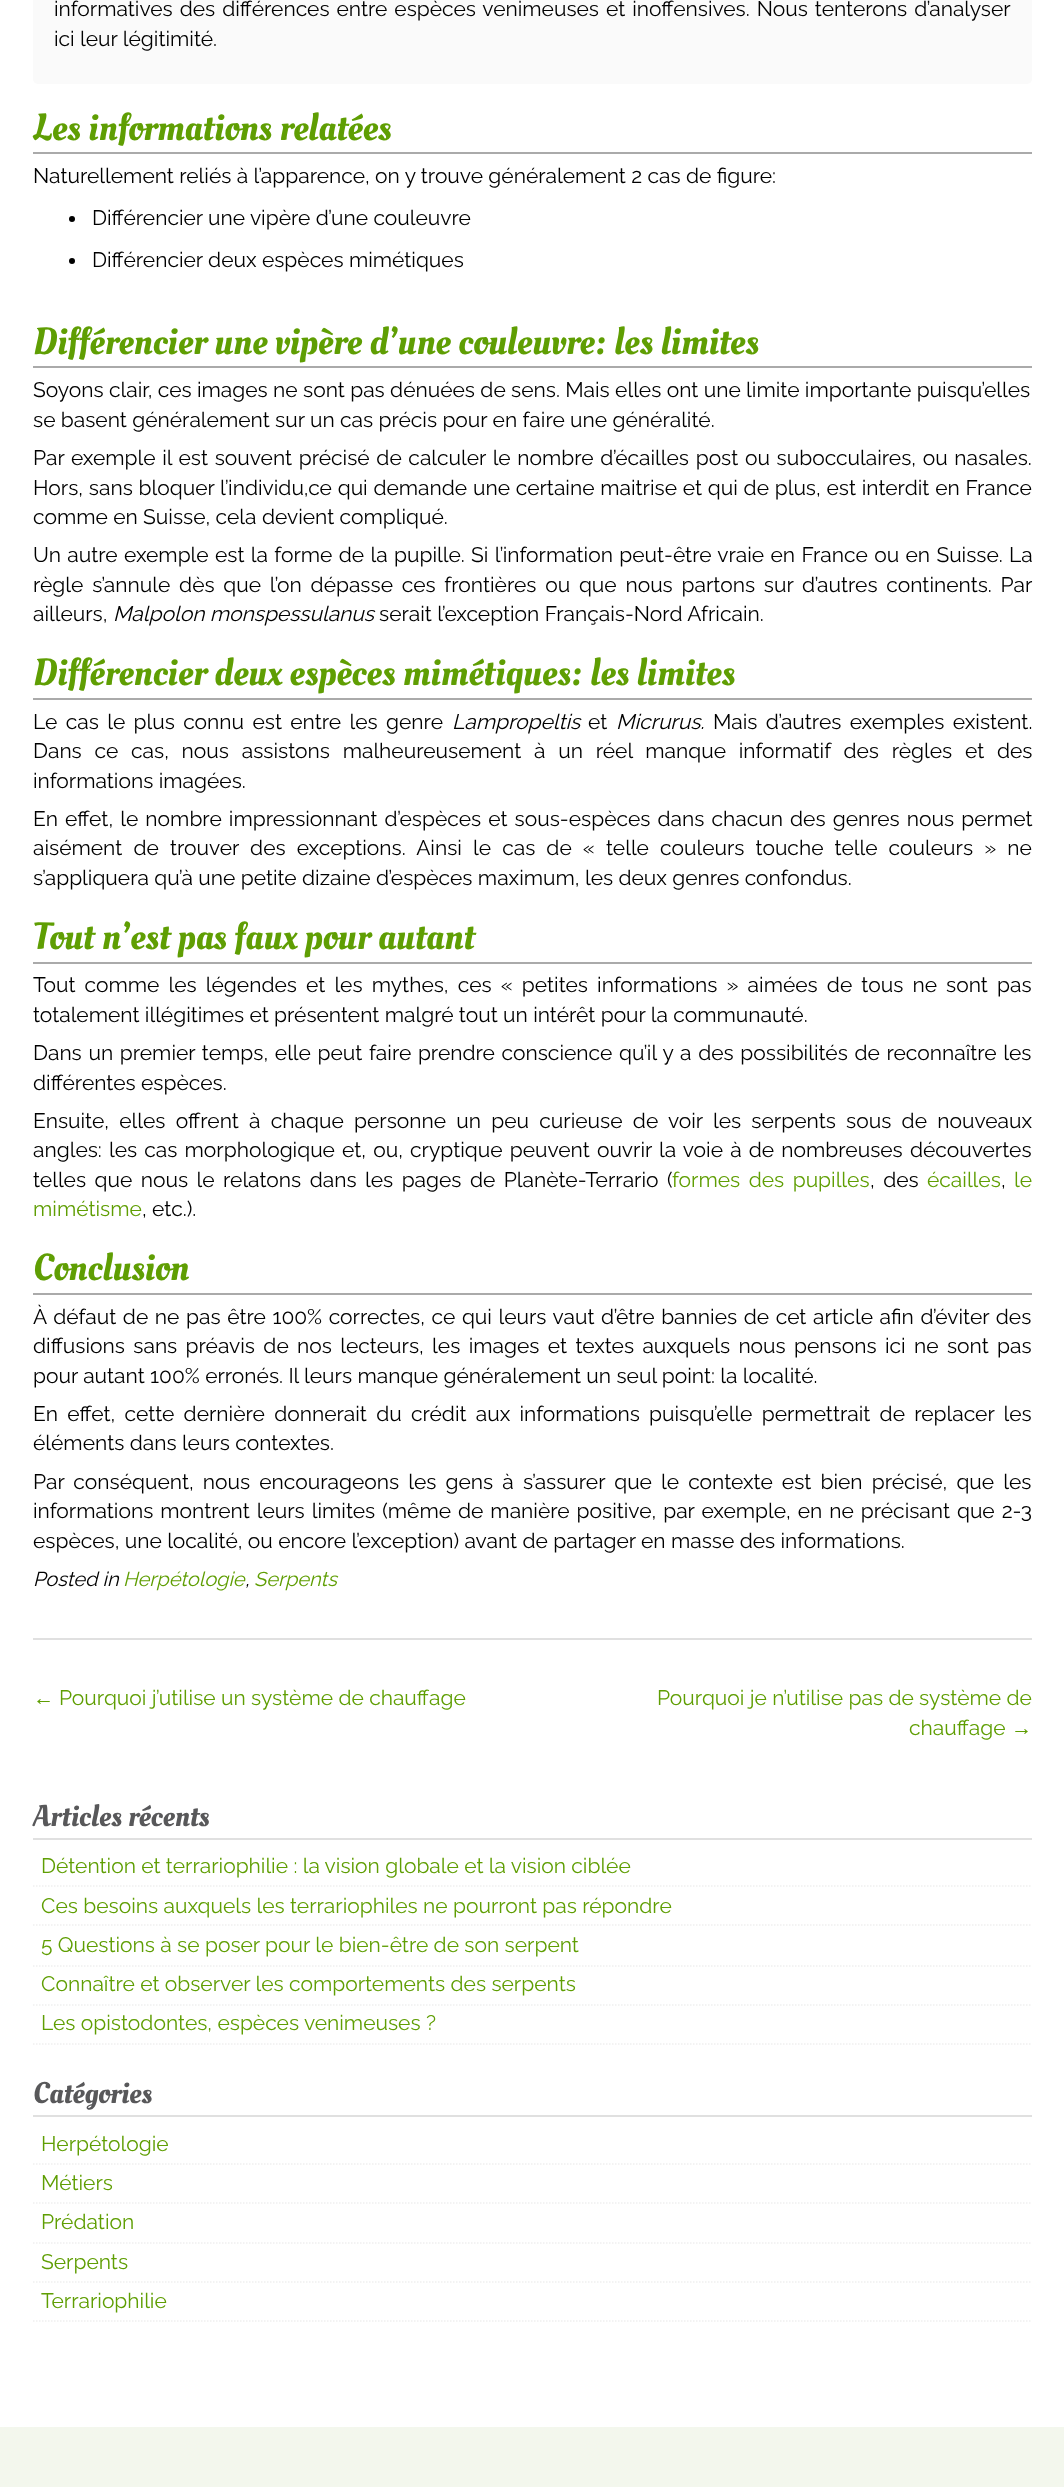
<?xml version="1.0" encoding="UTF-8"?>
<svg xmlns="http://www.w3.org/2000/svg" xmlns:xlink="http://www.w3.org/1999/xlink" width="1064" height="2487">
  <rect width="100%" height="100%" fill="#ffffff" />
  <rect x="33" y="1638" width="999" height="2" fill="#e0e0e0" />
  <rect x="33" y="-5" width="999" height="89" rx="5" fill="#fafafa" />
  <rect x="33" y="152" width="999" height="2" fill="#aaaaaa" />
  <circle cx="72" cy="219" r="3" fill="#000000" />
  <circle cx="72" cy="261" r="3" fill="#000000" />
  <rect x="33" y="366" width="999" height="2" fill="#aaaaaa" />
  <rect x="33" y="698" width="999" height="2" fill="#aaaaaa" />
  <rect x="33" y="962" width="999" height="2" fill="#aaaaaa" />
  <rect x="33" y="1293" width="999" height="2" fill="#aaaaaa" />
  <rect x="33" y="1838" width="999" height="2" fill="#e0e0e0" />
  <path d="M 33 1886 h 999" fill="none" stroke="#f0f0f0" stroke-width="1.5" stroke-dasharray="1.5 1.5" />
  <path d="M 33 1925 h 999" fill="none" stroke="#f0f0f0" stroke-width="1.5" stroke-dasharray="1.5 1.5" />
  <path d="M 33 1966 h 999" fill="none" stroke="#f0f0f0" stroke-width="1.5" stroke-dasharray="1.5 1.5" />
  <path d="M 33 2005 h 999" fill="none" stroke="#f0f0f0" stroke-width="1.5" stroke-dasharray="1.5 1.5" />
  <path d="M 33 2044 h 999" fill="none" stroke="#f0f0f0" stroke-width="1.5" stroke-dasharray="1.5 1.5" />
  <rect x="33" y="2115" width="999" height="2" fill="#e0e0e0" />
  <path d="M 33 2164 h 999" fill="none" stroke="#f0f0f0" stroke-width="1.5" stroke-dasharray="1.5 1.5" />
  <path d="M 33 2203 h 999" fill="none" stroke="#f0f0f0" stroke-width="1.5" stroke-dasharray="1.5 1.5" />
  <path d="M 33 2243 h 999" fill="none" stroke="#f0f0f0" stroke-width="1.5" stroke-dasharray="1.5 1.5" />
  <path d="M 33 2282 h 999" fill="none" stroke="#f0f0f0" stroke-width="1.5" stroke-dasharray="1.5 1.5" />
  <path d="M 33 2321 h 999" fill="none" stroke="#f0f0f0" stroke-width="1.5" stroke-dasharray="1.5 1.5" />
  <rect y="2427" width="1064" height="60" fill="#f3f7ed" />
  <text x="54" y="16" word-spacing="1.6" style="font-family: Raleway; font-size: 21px; fill: #000000">informatives des différences entre espèces venimeuses et inoffensives. Nous tenterons d’analyser</text>
  <text x="54" y="46" style="font-family: Raleway; font-size: 21px; fill: #000000">ici leur légitimité.</text>
  <text x="33" y="140" style="font-family: Oleo Script; font-size: 37.75px; fill: #5f9e03">Les informations relatées</text>
  <text x="33" y="183" style="font-family: Raleway; font-size: 21px; fill: #000000">Naturellement reliés à l’apparence, on y trouve généralement 2 cas de figure:</text>
  <text x="92" y="225" style="font-family: Raleway; font-size: 21px; fill: #000000">Différencier une vipère d’une couleuvre</text>
  <text x="92" y="267" style="font-family: Raleway; font-size: 21px; fill: #000000">Différencier deux espèces mimétiques</text>
  <text x="33" y="354" style="font-family: Oleo Script; font-size: 37.75px; fill: #5f9e03">Différencier une vipère d’une couleuvre: les limites</text>
  <text x="33" y="397" style="font-family: Raleway; font-size: 21px; fill: #000000">Soyons clair, ces images ne sont pas dénuées de sens. Mais elles ont une limite importante puisqu’elles</text>
  <text x="33" y="427" style="font-family: Raleway; font-size: 21px; fill: #000000">se basent généralement sur un cas précis pour en faire une généralité.</text>
  <text x="33" y="465" word-spacing="1.3" style="font-family: Raleway; font-size: 21px; fill: #000000">Par exemple il est souvent précisé de calculer le nombre d’écailles post ou subocculaires, ou nasales.</text>
  <text x="33" y="495" word-spacing="0.4" style="font-family: Raleway; font-size: 21px; fill: #000000">Hors, sans bloquer l’individu,ce qui demande une certaine maitrise et qui de plus, est interdit en France</text>
  <text x="33" y="524" style="font-family: Raleway; font-size: 21px; fill: #000000">comme en Suisse, cela devient compliqué.</text>
  <text x="33" y="562" word-spacing="1" style="font-family: Raleway; font-size: 21px; fill: #000000">Un autre exemple est la forme de la pupille. Si l’information peut-être vraie en France ou en Suisse. La</text>
  <text x="33" y="592" word-spacing="3.4" style="font-family: Raleway; font-size: 21px; fill: #000000">règle s’annule dès que l’on dépasse ces frontières ou que nous partons sur d’autres continents. Par</text>
  <text x="33" y="621" style="font-family: Raleway; font-size: 21px; fill: #000000">ailleurs,</text>
  <text x="113" y="621" style="font-family: Raleway; font-size: 21px; font-style: italic; fill: #000000">Malpolon monspessulanus</text>
  <text x="379" y="621" style="font-family: Raleway; font-size: 21px; fill: #000000">serait l’exception Français-Nord Africain.</text>
  <text x="33" y="685" style="font-family: Oleo Script; font-size: 37.75px; fill: #5f9e03">Différencier deux espèces mimétiques: les limites</text>
  <text x="33" y="729" word-spacing="3" style="font-family: Raleway; font-size: 21px; fill: #000000">Le cas le plus connu est entre les genre</text>
  <text x="452" y="729" style="font-family: Raleway; font-size: 21px; font-style: italic; fill: #000000">Lampropeltis</text>
  <text x="588" y="729" style="font-family: Raleway; font-size: 21px; fill: #000000">et</text>
  <text x="616" y="729" style="font-family: Raleway; font-size: 21px; font-style: italic; fill: #000000">Micrurus.</text>
  <text x="713" y="729" word-spacing="3" style="font-family: Raleway; font-size: 21px; fill: #000000">Mais d’autres exemples existent.</text>
  <text x="33" y="758" word-spacing="7.4" style="font-family: Raleway; font-size: 21px; fill: #000000">Dans ce cas, nous assistons malheureusement à un réel manque informatif des règles et des</text>
  <text x="33" y="788" style="font-family: Raleway; font-size: 21px; fill: #000000">informations imagées.</text>
  <text x="33" y="826" word-spacing="1.75" style="font-family: Raleway; font-size: 21px; fill: #000000">En effet, le nombre impressionnant d’espèces et sous-espèces dans chacun des genres nous permet</text>
  <text x="33" y="855" word-spacing="5.75" style="font-family: Raleway; font-size: 21px; fill: #000000">aisément de trouver des exceptions. Ainsi le cas de « telle couleurs touche telle couleurs » ne</text>
  <text x="33" y="885" style="font-family: Raleway; font-size: 21px; fill: #000000">s’appliquera qu’à une petite dizaine d’espèces maximum, les deux genres confondus.</text>
  <text x="33" y="949" style="font-family: Oleo Script; font-size: 37.75px; fill: #5f9e03">Tout n’est pas faux pour autant</text>
  <text x="33" y="992" word-spacing="3.75" style="font-family: Raleway; font-size: 21px; fill: #000000">Tout comme les légendes et les mythes, ces « petites informations » aimées de tous ne sont pas</text>
  <text x="33" y="1022" style="font-family: Raleway; font-size: 21px; fill: #000000">totalement illégitimes et présentent malgré tout un intérêt pour la communauté.</text>
  <text x="33" y="1060" word-spacing="1.3" style="font-family: Raleway; font-size: 21px; fill: #000000">Dans un premier temps, elle peut faire prendre conscience qu’il y a des possibilités de reconnaître les</text>
  <text x="33" y="1090" style="font-family: Raleway; font-size: 21px; fill: #000000">différentes espèces.</text>
  <text x="33" y="1128" word-spacing="4.9" style="font-family: Raleway; font-size: 21px; fill: #000000">Ensuite, elles offrent à chaque personne un peu curieuse de voir les serpents sous de nouveaux</text>
  <text x="33" y="1157" word-spacing="1.8" style="font-family: Raleway; font-size: 21px; fill: #000000">angles: les cas morphologique et, ou, cryptique peuvent ouvrir la voie à de nombreuses découvertes</text>
  <text x="33" y="1187" word-spacing="3.1" style="font-family: Raleway; font-size: 21px; fill: #000000">telles que nous le relatons dans les pages de Planète-Terrario (</text>
  <text x="672" y="1187" word-spacing="3.1" style="font-family: Raleway; font-size: 21px; fill: #5f9e03">formes des pupilles</text>
  <text x="870" y="1187" word-spacing="3.1" style="font-family: Raleway; font-size: 21px; fill: #000000">, des</text>
  <text x="927" y="1187" style="font-family: Raleway; font-size: 21px; fill: #5f9e03">écailles</text>
  <text x="1001" y="1187" style="font-family: Raleway; font-size: 21px; fill: #000000">,</text>
  <text x="1014" y="1187" style="font-family: Raleway; font-size: 21px; fill: #5f9e03">le</text>
  <text x="33" y="1216" style="font-family: Raleway; font-size: 21px; fill: #5f9e03">mimétisme</text>
  <text x="142" y="1216" style="font-family: Raleway; font-size: 21px; fill: #000000">, etc.).</text>
  <text x="33" y="1280" style="font-family: Oleo Script; font-size: 37.75px; fill: #5f9e03">Conclusion</text>
  <text x="33" y="1324" word-spacing="1.25" style="font-family: Raleway; font-size: 21px; fill: #000000">À défaut de ne pas être 100% correctes, ce qui leurs vaut d’être bannies de cet article afin d’éviter des</text>
  <text x="33" y="1353" word-spacing="3" style="font-family: Raleway; font-size: 21px; fill: #000000">diffusions sans préavis de nos lecteurs, les images et textes auxquels nous pensons ici ne sont pas</text>
  <text x="33" y="1383" style="font-family: Raleway; font-size: 21px; fill: #000000">pour autant 100% erronés. Il leurs manque généralement un seul point: la localité.</text>
  <text x="33" y="1421" word-spacing="3.9" style="font-family: Raleway; font-size: 21px; fill: #000000">En effet, cette dernière donnerait du crédit aux informations puisqu’elle permettrait de replacer les</text>
  <text x="33" y="1450" style="font-family: Raleway; font-size: 21px; fill: #000000">éléments dans leurs contextes.</text>
  <text x="33" y="1489" word-spacing="3.75" style="font-family: Raleway; font-size: 21px; fill: #000000">Par conséquent, nous encourageons les gens à s’assurer que le contexte est bien précisé, que les</text>
  <text x="33" y="1518" word-spacing="1.6" style="font-family: Raleway; font-size: 21px; fill: #000000">informations montrent leurs limites (même de manière positive, par exemple, en ne précisant que 2-3</text>
  <text x="33" y="1548" style="font-family: Raleway; font-size: 21px; fill: #000000">espèces, une localité, ou encore l’exception) avant de partager en masse des informations.</text>
  <text x="33" y="1586" style="font-family: Raleway; font-size: 20px; font-style: italic; fill: #000000">Posted in</text>
  <text x="123" y="1586" style="font-family: Raleway; font-size: 20px; font-style: italic; fill: #5f9e03">Herpétologie</text>
  <text x="245" y="1586" style="font-family: Raleway; font-size: 20px; font-style: italic; fill: #000000">,</text>
  <text x="254" y="1586" style="font-family: Raleway; font-size: 20px; font-style: italic; fill: #5f9e03">Serpents</text>
  <text x="33" y="1705" style="font-family: Liberation Sans; font-size: 21px; fill: #5f9e03">←</text>
  <text x="59" y="1705" style="font-family: Raleway; font-size: 21px; fill: #5f9e03">Pourquoi j’utilise un système de chauffage</text>
  <text x="657" y="1705" style="font-family: Raleway; font-size: 21px; fill: #5f9e03">Pourquoi je n’utilise pas de système de</text>
  <text x="909" y="1735" style="font-family: Raleway; font-size: 21px; fill: #5f9e03">chauffage</text>
  <text x="1011" y="1735" style="font-family: Liberation Sans; font-size: 21px; fill: #5f9e03">→</text>
  <text x="33" y="1826" style="font-family: Oleo Script; font-size: 30px; fill: #58585a">Articles récents</text>
  <text x="41" y="1873" style="font-family: Raleway; font-size: 21px; fill: #5f9e03">Détention et terrariophilie : la vision globale et la vision ciblée</text>
  <text x="41" y="1913" style="font-family: Raleway; font-size: 21px; fill: #5f9e03">Ces besoins auxquels les terrariophiles ne pourront pas répondre</text>
  <text x="41" y="1952" style="font-family: Raleway; font-size: 21px; fill: #5f9e03">5 Questions à se poser pour le bien-être de son serpent</text>
  <text x="41" y="1991" style="font-family: Raleway; font-size: 21px; fill: #5f9e03">Connaître et observer les comportements des serpents</text>
  <text x="41" y="2030" style="font-family: Raleway; font-size: 21px; fill: #5f9e03">Les opistodontes, espèces venimeuses ?</text>
  <text x="33" y="2103" style="font-family: Oleo Script; font-size: 30px; fill: #58585a">Catégories</text>
  <text x="41" y="2151" style="font-family: Raleway; font-size: 21px; fill: #5f9e03">Herpétologie</text>
  <text x="41" y="2190" style="font-family: Raleway; font-size: 21px; fill: #5f9e03">Métiers</text>
  <text x="41" y="2229" style="font-family: Raleway; font-size: 21px; fill: #5f9e03">Prédation</text>
  <text x="41" y="2269" style="font-family: Raleway; font-size: 21px; fill: #5f9e03">Serpents</text>
  <text x="41" y="2308" style="font-family: Raleway; font-size: 21px; fill: #5f9e03">Terrariophilie</text>
</svg>
